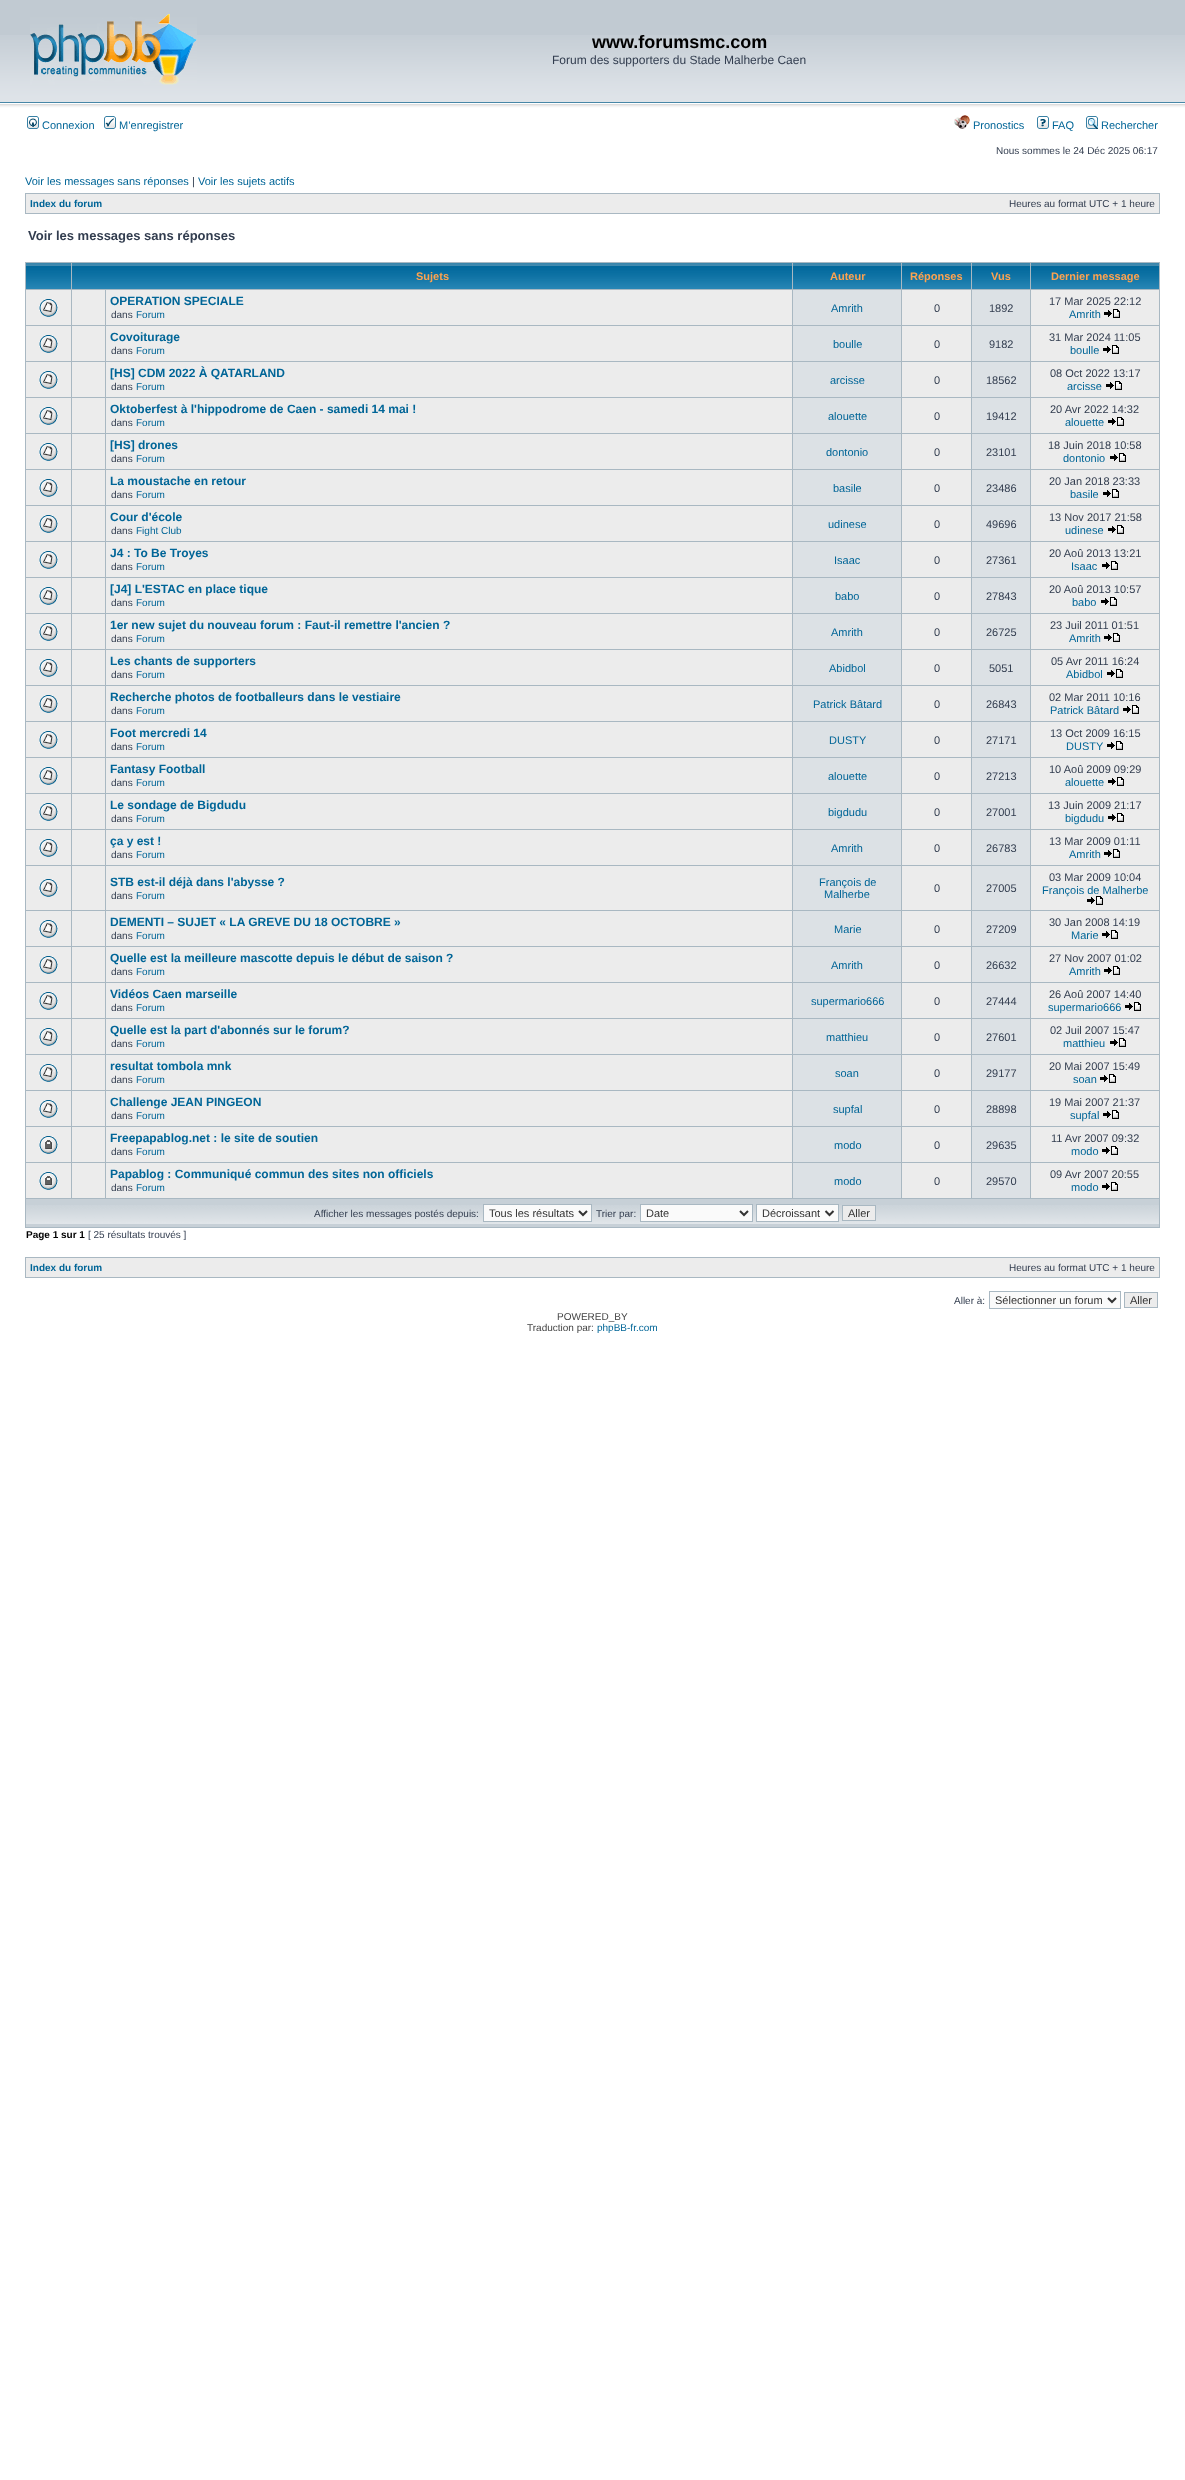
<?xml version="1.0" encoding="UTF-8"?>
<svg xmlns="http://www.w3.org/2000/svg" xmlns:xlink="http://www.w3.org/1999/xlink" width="1185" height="2480">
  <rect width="100%" height="100%" fill="#ffffff" />
  <rect width="1185" height="35" fill="#c1cad2" />
  <image x="0" y="35" width="1185" height="78" xlink:href="image1.png" />
  <image x="30" y="14" width="167" height="71" xlink:href="image2.png" />
  <image x="27" y="116" width="12" height="13" xlink:href="image3.png" />
  <image x="104" y="116" width="12" height="13" xlink:href="image4.png" />
  <image x="954" y="115" width="16" height="14" xlink:href="image5.png" />
  <image x="1037" y="116" width="12" height="13" xlink:href="image6.png" />
  <image x="1086" y="116" width="12" height="13" xlink:href="image7.png" />
  <rect x="25" y="193" width="1135" height="21" fill="#a9b8c2" />
  <rect x="26" y="194" width="1133" height="19" fill="#ececec" />
  <rect x="25" y="262" width="1135" height="966" fill="#a9b8c2" />
  <image x="26" y="263" width="45" height="26" xlink:href="image8.png" />
  <image x="72" y="263" width="720" height="26" xlink:href="image9.png" />
  <image x="793" y="263" width="108" height="26" xlink:href="image10.png" />
  <image x="902" y="263" width="69" height="26" xlink:href="image11.png" />
  <image x="972" y="263" width="58" height="26" xlink:href="image12.png" />
  <image x="1031" y="263" width="128" height="26" xlink:href="image13.png" />
  <rect x="26" y="290" width="45" height="35" fill="#ececec" />
  <image x="39" y="299" width="19" height="18" xlink:href="image14.png" />
  <rect x="72" y="290" width="33" height="35" fill="#ececec" />
  <rect x="106" y="290" width="686" height="35" fill="#ececec" />
  <rect x="793" y="290" width="108" height="35" fill="#dce1e5" />
  <rect x="902" y="290" width="69" height="35" fill="#ececec" />
  <rect x="972" y="290" width="58" height="35" fill="#dce1e5" />
  <rect x="1031" y="290" width="128" height="35" fill="#ececec" />
  <image x="1104" y="309" width="16" height="9" xlink:href="image15.png" />
  <rect x="26" y="326" width="45" height="35" fill="#ececec" />
  <image x="39" y="335" width="19" height="18" xlink:href="image14.png" />
  <rect x="72" y="326" width="33" height="35" fill="#ececec" />
  <rect x="106" y="326" width="686" height="35" fill="#ececec" />
  <rect x="793" y="326" width="108" height="35" fill="#dce1e5" />
  <rect x="902" y="326" width="69" height="35" fill="#ececec" />
  <rect x="972" y="326" width="58" height="35" fill="#dce1e5" />
  <rect x="1031" y="326" width="128" height="35" fill="#ececec" />
  <image x="1103" y="345" width="16" height="9" xlink:href="image15.png" />
  <rect x="26" y="362" width="45" height="35" fill="#ececec" />
  <image x="39" y="371" width="19" height="18" xlink:href="image14.png" />
  <rect x="72" y="362" width="33" height="35" fill="#ececec" />
  <rect x="106" y="362" width="686" height="35" fill="#ececec" />
  <rect x="793" y="362" width="108" height="35" fill="#dce1e5" />
  <rect x="902" y="362" width="69" height="35" fill="#ececec" />
  <rect x="972" y="362" width="58" height="35" fill="#dce1e5" />
  <rect x="1031" y="362" width="128" height="35" fill="#ececec" />
  <image x="1106" y="381" width="16" height="9" xlink:href="image15.png" />
  <rect x="26" y="398" width="45" height="35" fill="#ececec" />
  <image x="39" y="407" width="19" height="18" xlink:href="image14.png" />
  <rect x="72" y="398" width="33" height="35" fill="#ececec" />
  <rect x="106" y="398" width="686" height="35" fill="#ececec" />
  <rect x="793" y="398" width="108" height="35" fill="#dce1e5" />
  <rect x="902" y="398" width="69" height="35" fill="#ececec" />
  <rect x="972" y="398" width="58" height="35" fill="#dce1e5" />
  <rect x="1031" y="398" width="128" height="35" fill="#ececec" />
  <image x="1108" y="417" width="16" height="9" xlink:href="image15.png" />
  <rect x="26" y="434" width="45" height="35" fill="#ececec" />
  <image x="39" y="443" width="19" height="18" xlink:href="image14.png" />
  <rect x="72" y="434" width="33" height="35" fill="#ececec" />
  <rect x="106" y="434" width="686" height="35" fill="#ececec" />
  <rect x="793" y="434" width="108" height="35" fill="#dce1e5" />
  <rect x="902" y="434" width="69" height="35" fill="#ececec" />
  <rect x="972" y="434" width="58" height="35" fill="#dce1e5" />
  <rect x="1031" y="434" width="128" height="35" fill="#ececec" />
  <image x="1110" y="453" width="16" height="9" xlink:href="image15.png" />
  <rect x="26" y="470" width="45" height="35" fill="#ececec" />
  <image x="39" y="479" width="19" height="18" xlink:href="image14.png" />
  <rect x="72" y="470" width="33" height="35" fill="#ececec" />
  <rect x="106" y="470" width="686" height="35" fill="#ececec" />
  <rect x="793" y="470" width="108" height="35" fill="#dce1e5" />
  <rect x="902" y="470" width="69" height="35" fill="#ececec" />
  <rect x="972" y="470" width="58" height="35" fill="#dce1e5" />
  <rect x="1031" y="470" width="128" height="35" fill="#ececec" />
  <image x="1103" y="489" width="16" height="9" xlink:href="image15.png" />
  <rect x="26" y="506" width="45" height="35" fill="#ececec" />
  <image x="39" y="515" width="19" height="18" xlink:href="image14.png" />
  <rect x="72" y="506" width="33" height="35" fill="#ececec" />
  <rect x="106" y="506" width="686" height="35" fill="#ececec" />
  <rect x="793" y="506" width="108" height="35" fill="#dce1e5" />
  <rect x="902" y="506" width="69" height="35" fill="#ececec" />
  <rect x="972" y="506" width="58" height="35" fill="#dce1e5" />
  <rect x="1031" y="506" width="128" height="35" fill="#ececec" />
  <image x="1108" y="525" width="16" height="9" xlink:href="image15.png" />
  <rect x="26" y="542" width="45" height="35" fill="#ececec" />
  <image x="39" y="551" width="19" height="18" xlink:href="image14.png" />
  <rect x="72" y="542" width="33" height="35" fill="#ececec" />
  <rect x="106" y="542" width="686" height="35" fill="#ececec" />
  <rect x="793" y="542" width="108" height="35" fill="#dce1e5" />
  <rect x="902" y="542" width="69" height="35" fill="#ececec" />
  <rect x="972" y="542" width="58" height="35" fill="#dce1e5" />
  <rect x="1031" y="542" width="128" height="35" fill="#ececec" />
  <image x="1102" y="561" width="16" height="9" xlink:href="image15.png" />
  <rect x="26" y="578" width="45" height="35" fill="#ececec" />
  <image x="39" y="587" width="19" height="18" xlink:href="image14.png" />
  <rect x="72" y="578" width="33" height="35" fill="#ececec" />
  <rect x="106" y="578" width="686" height="35" fill="#ececec" />
  <rect x="793" y="578" width="108" height="35" fill="#dce1e5" />
  <rect x="902" y="578" width="69" height="35" fill="#ececec" />
  <rect x="972" y="578" width="58" height="35" fill="#dce1e5" />
  <rect x="1031" y="578" width="128" height="35" fill="#ececec" />
  <image x="1101" y="597" width="16" height="9" xlink:href="image15.png" />
  <rect x="26" y="614" width="45" height="35" fill="#ececec" />
  <image x="39" y="623" width="19" height="18" xlink:href="image14.png" />
  <rect x="72" y="614" width="33" height="35" fill="#ececec" />
  <rect x="106" y="614" width="686" height="35" fill="#ececec" />
  <rect x="793" y="614" width="108" height="35" fill="#dce1e5" />
  <rect x="902" y="614" width="69" height="35" fill="#ececec" />
  <rect x="972" y="614" width="58" height="35" fill="#dce1e5" />
  <rect x="1031" y="614" width="128" height="35" fill="#ececec" />
  <image x="1104" y="633" width="16" height="9" xlink:href="image15.png" />
  <rect x="26" y="650" width="45" height="35" fill="#ececec" />
  <image x="39" y="659" width="19" height="18" xlink:href="image14.png" />
  <rect x="72" y="650" width="33" height="35" fill="#ececec" />
  <rect x="106" y="650" width="686" height="35" fill="#ececec" />
  <rect x="793" y="650" width="108" height="35" fill="#dce1e5" />
  <rect x="902" y="650" width="69" height="35" fill="#ececec" />
  <rect x="972" y="650" width="58" height="35" fill="#dce1e5" />
  <rect x="1031" y="650" width="128" height="35" fill="#ececec" />
  <image x="1107" y="669" width="16" height="9" xlink:href="image15.png" />
  <rect x="26" y="686" width="45" height="35" fill="#ececec" />
  <image x="39" y="695" width="19" height="18" xlink:href="image14.png" />
  <rect x="72" y="686" width="33" height="35" fill="#ececec" />
  <rect x="106" y="686" width="686" height="35" fill="#ececec" />
  <rect x="793" y="686" width="108" height="35" fill="#dce1e5" />
  <rect x="902" y="686" width="69" height="35" fill="#ececec" />
  <rect x="972" y="686" width="58" height="35" fill="#dce1e5" />
  <rect x="1031" y="686" width="128" height="35" fill="#ececec" />
  <image x="1123" y="705" width="16" height="9" xlink:href="image15.png" />
  <rect x="26" y="722" width="45" height="35" fill="#ececec" />
  <image x="39" y="731" width="19" height="18" xlink:href="image14.png" />
  <rect x="72" y="722" width="33" height="35" fill="#ececec" />
  <rect x="106" y="722" width="686" height="35" fill="#ececec" />
  <rect x="793" y="722" width="108" height="35" fill="#dce1e5" />
  <rect x="902" y="722" width="69" height="35" fill="#ececec" />
  <rect x="972" y="722" width="58" height="35" fill="#dce1e5" />
  <rect x="1031" y="722" width="128" height="35" fill="#ececec" />
  <image x="1107" y="741" width="16" height="9" xlink:href="image15.png" />
  <rect x="26" y="758" width="45" height="35" fill="#ececec" />
  <image x="39" y="767" width="19" height="18" xlink:href="image14.png" />
  <rect x="72" y="758" width="33" height="35" fill="#ececec" />
  <rect x="106" y="758" width="686" height="35" fill="#ececec" />
  <rect x="793" y="758" width="108" height="35" fill="#dce1e5" />
  <rect x="902" y="758" width="69" height="35" fill="#ececec" />
  <rect x="972" y="758" width="58" height="35" fill="#dce1e5" />
  <rect x="1031" y="758" width="128" height="35" fill="#ececec" />
  <image x="1108" y="777" width="16" height="9" xlink:href="image15.png" />
  <rect x="26" y="794" width="45" height="35" fill="#ececec" />
  <image x="39" y="803" width="19" height="18" xlink:href="image14.png" />
  <rect x="72" y="794" width="33" height="35" fill="#ececec" />
  <rect x="106" y="794" width="686" height="35" fill="#ececec" />
  <rect x="793" y="794" width="108" height="35" fill="#dce1e5" />
  <rect x="902" y="794" width="69" height="35" fill="#ececec" />
  <rect x="972" y="794" width="58" height="35" fill="#dce1e5" />
  <rect x="1031" y="794" width="128" height="35" fill="#ececec" />
  <image x="1108" y="813" width="16" height="9" xlink:href="image15.png" />
  <rect x="26" y="830" width="45" height="35" fill="#ececec" />
  <image x="39" y="839" width="19" height="18" xlink:href="image14.png" />
  <rect x="72" y="830" width="33" height="35" fill="#ececec" />
  <rect x="106" y="830" width="686" height="35" fill="#ececec" />
  <rect x="793" y="830" width="108" height="35" fill="#dce1e5" />
  <rect x="902" y="830" width="69" height="35" fill="#ececec" />
  <rect x="972" y="830" width="58" height="35" fill="#dce1e5" />
  <rect x="1031" y="830" width="128" height="35" fill="#ececec" />
  <image x="1104" y="849" width="16" height="9" xlink:href="image15.png" />
  <rect x="26" y="866" width="45" height="44" fill="#ececec" />
  <image x="39" y="879" width="19" height="18" xlink:href="image14.png" />
  <rect x="72" y="866" width="33" height="44" fill="#ececec" />
  <rect x="106" y="866" width="686" height="44" fill="#ececec" />
  <rect x="793" y="866" width="108" height="44" fill="#dce1e5" />
  <rect x="902" y="866" width="69" height="44" fill="#ececec" />
  <rect x="972" y="866" width="58" height="44" fill="#dce1e5" />
  <rect x="1031" y="866" width="128" height="44" fill="#ececec" />
  <rect x="26" y="911" width="45" height="35" fill="#ececec" />
  <image x="39" y="920" width="19" height="18" xlink:href="image14.png" />
  <rect x="72" y="911" width="33" height="35" fill="#ececec" />
  <rect x="106" y="911" width="686" height="35" fill="#ececec" />
  <rect x="793" y="911" width="108" height="35" fill="#dce1e5" />
  <rect x="902" y="911" width="69" height="35" fill="#ececec" />
  <rect x="972" y="911" width="58" height="35" fill="#dce1e5" />
  <rect x="1031" y="911" width="128" height="35" fill="#ececec" />
  <image x="1102" y="930" width="16" height="9" xlink:href="image15.png" />
  <rect x="26" y="947" width="45" height="35" fill="#ececec" />
  <image x="39" y="956" width="19" height="18" xlink:href="image14.png" />
  <rect x="72" y="947" width="33" height="35" fill="#ececec" />
  <rect x="106" y="947" width="686" height="35" fill="#ececec" />
  <rect x="793" y="947" width="108" height="35" fill="#dce1e5" />
  <rect x="902" y="947" width="69" height="35" fill="#ececec" />
  <rect x="972" y="947" width="58" height="35" fill="#dce1e5" />
  <rect x="1031" y="947" width="128" height="35" fill="#ececec" />
  <image x="1104" y="966" width="16" height="9" xlink:href="image15.png" />
  <rect x="26" y="983" width="45" height="35" fill="#ececec" />
  <image x="39" y="992" width="19" height="18" xlink:href="image14.png" />
  <rect x="72" y="983" width="33" height="35" fill="#ececec" />
  <rect x="106" y="983" width="686" height="35" fill="#ececec" />
  <rect x="793" y="983" width="108" height="35" fill="#dce1e5" />
  <rect x="902" y="983" width="69" height="35" fill="#ececec" />
  <rect x="972" y="983" width="58" height="35" fill="#dce1e5" />
  <rect x="1031" y="983" width="128" height="35" fill="#ececec" />
  <image x="1125" y="1002" width="16" height="9" xlink:href="image15.png" />
  <rect x="26" y="1019" width="45" height="35" fill="#ececec" />
  <image x="39" y="1028" width="19" height="18" xlink:href="image14.png" />
  <rect x="72" y="1019" width="33" height="35" fill="#ececec" />
  <rect x="106" y="1019" width="686" height="35" fill="#ececec" />
  <rect x="793" y="1019" width="108" height="35" fill="#dce1e5" />
  <rect x="902" y="1019" width="69" height="35" fill="#ececec" />
  <rect x="972" y="1019" width="58" height="35" fill="#dce1e5" />
  <rect x="1031" y="1019" width="128" height="35" fill="#ececec" />
  <image x="1110" y="1038" width="16" height="9" xlink:href="image15.png" />
  <rect x="26" y="1055" width="45" height="35" fill="#ececec" />
  <image x="39" y="1064" width="19" height="18" xlink:href="image14.png" />
  <rect x="72" y="1055" width="33" height="35" fill="#ececec" />
  <rect x="106" y="1055" width="686" height="35" fill="#ececec" />
  <rect x="793" y="1055" width="108" height="35" fill="#dce1e5" />
  <rect x="902" y="1055" width="69" height="35" fill="#ececec" />
  <rect x="972" y="1055" width="58" height="35" fill="#dce1e5" />
  <rect x="1031" y="1055" width="128" height="35" fill="#ececec" />
  <image x="1100" y="1074" width="16" height="9" xlink:href="image15.png" />
  <rect x="26" y="1091" width="45" height="35" fill="#ececec" />
  <image x="39" y="1100" width="19" height="18" xlink:href="image14.png" />
  <rect x="72" y="1091" width="33" height="35" fill="#ececec" />
  <rect x="106" y="1091" width="686" height="35" fill="#ececec" />
  <rect x="793" y="1091" width="108" height="35" fill="#dce1e5" />
  <rect x="902" y="1091" width="69" height="35" fill="#ececec" />
  <rect x="972" y="1091" width="58" height="35" fill="#dce1e5" />
  <rect x="1031" y="1091" width="128" height="35" fill="#ececec" />
  <image x="1103" y="1110" width="16" height="9" xlink:href="image15.png" />
  <rect x="26" y="1127" width="45" height="35" fill="#ececec" />
  <image x="39" y="1136" width="19" height="18" xlink:href="image16.png" />
  <rect x="72" y="1127" width="33" height="35" fill="#ececec" />
  <rect x="106" y="1127" width="686" height="35" fill="#ececec" />
  <rect x="793" y="1127" width="108" height="35" fill="#dce1e5" />
  <rect x="902" y="1127" width="69" height="35" fill="#ececec" />
  <rect x="972" y="1127" width="58" height="35" fill="#dce1e5" />
  <rect x="1031" y="1127" width="128" height="35" fill="#ececec" />
  <image x="1102" y="1146" width="16" height="9" xlink:href="image15.png" />
  <rect x="26" y="1163" width="45" height="35" fill="#ececec" />
  <image x="39" y="1172" width="19" height="18" xlink:href="image16.png" />
  <rect x="72" y="1163" width="33" height="35" fill="#ececec" />
  <rect x="106" y="1163" width="686" height="35" fill="#ececec" />
  <rect x="793" y="1163" width="108" height="35" fill="#dce1e5" />
  <rect x="902" y="1163" width="69" height="35" fill="#ececec" />
  <rect x="972" y="1163" width="58" height="35" fill="#dce1e5" />
  <rect x="1031" y="1163" width="128" height="35" fill="#ececec" />
  <image x="1102" y="1182" width="16" height="9" xlink:href="image15.png" />
  <rect x="26" y="1199" width="1133" height="28" fill="#c7d0d7" />
  <image x="26" y="1205" width="1133" height="19" xlink:href="image17.png" />
  <rect x="483.5" y="1204.5" width="108" height="17" fill="#fafafa" stroke="#a9b8c2" />
  <path d="M 579 1211 l 4 4 l 4 -4" fill="none" stroke="#333333" stroke-width="2" />
  <rect x="640.5" y="1204.5" width="112" height="17" fill="#fafafa" stroke="#a9b8c2" />
  <path d="M 740 1211 l 4 4 l 4 -4" fill="none" stroke="#333333" stroke-width="2" />
  <rect x="756.5" y="1204.5" width="82" height="17" fill="#fafafa" stroke="#a9b8c2" />
  <path d="M 825.5 1211 l 4 4 l 4 -4" fill="none" stroke="#333333" stroke-width="2" />
  <rect x="842.5" y="1205.5" width="33" height="15" fill="#ececec" stroke="#a9b8c2" />
  <rect x="25" y="1257" width="1135" height="21" fill="#a9b8c2" />
  <rect x="26" y="1258" width="1133" height="19" fill="#ececec" />
  <rect x="989.5" y="1291.5" width="131" height="17" fill="#fafafa" stroke="#a9b8c2" />
  <path d="M 1108 1298 l 4 4 l 4 -4" fill="none" stroke="#333333" stroke-width="2" />
  <rect x="1124.5" y="1292.5" width="33" height="15" fill="#ececec" stroke="#a9b8c2" />
  <text x="592" y="48" style="font-family: Liberation Sans; font-size: 18px; font-weight: bold; fill: #000000">www.forumsmc.com</text>
  <text x="552" y="64" style="font-family: Liberation Sans; font-size: 12px; fill: #323d4f">Forum des supporters du Stade Malherbe Caen</text>
  <text x="42" y="129" style="font-family: Liberation Sans; font-size: 11px; fill: #006597">Connexion</text>
  <text x="119" y="129" style="font-family: Liberation Sans; font-size: 11px; fill: #006597">M’enregistrer</text>
  <text x="973" y="129" style="font-family: Liberation Sans; font-size: 11px; fill: #006597">Pronostics</text>
  <text x="1052" y="129" style="font-family: Liberation Sans; font-size: 11px; fill: #006597">FAQ</text>
  <text x="1101" y="129" style="font-family: Liberation Sans; font-size: 11px; fill: #006597">Rechercher</text>
  <text x="996" y="154" style="font-family: Liberation Sans; font-size: 10px; fill: #323d4f">Nous sommes le 24 Déc 2025 06:17</text>
  <text x="25" y="185" style="font-family: Liberation Sans; font-size: 11px; fill: #006597">Voir les messages sans réponses</text>
  <text x="192" y="185" style="font-family: Liberation Sans; font-size: 11px; fill: #323d4f">|</text>
  <text x="198" y="185" style="font-family: Liberation Sans; font-size: 11px; fill: #006597">Voir les sujets actifs</text>
  <text x="30" y="207" style="font-family: Liberation Sans; font-size: 10px; font-weight: bold; fill: #006597">Index du forum</text>
  <text x="1009" y="207" style="font-family: Liberation Sans; font-size: 10px; fill: #323d4f">Heures au format UTC + 1 heure</text>
  <text x="28" y="240" style="font-family: Liberation Sans; font-size: 13px; font-weight: bold; fill: #323d4f">Voir les messages sans réponses</text>
  <text x="416" y="280" style="font-family: Liberation Sans; font-size: 11px; font-weight: bold; fill: #ffa34f">Sujets</text>
  <text x="830" y="280" style="font-family: Liberation Sans; font-size: 11px; font-weight: bold; fill: #ffa34f">Auteur</text>
  <text x="910" y="280" style="font-family: Liberation Sans; font-size: 11px; font-weight: bold; fill: #ffa34f">Réponses</text>
  <text x="991" y="280" style="font-family: Liberation Sans; font-size: 11px; font-weight: bold; fill: #ffa34f">Vus</text>
  <text x="1051" y="280" style="font-family: Liberation Sans; font-size: 11px; font-weight: bold; fill: #ffa34f">Dernier message</text>
  <text x="110" y="305" style="font-family: Liberation Sans; font-size: 12px; font-weight: bold; fill: #006597">OPERATION SPECIALE</text>
  <text x="111" y="318" style="font-family: Liberation Sans; font-size: 10px; fill: #323d4f">dans</text>
  <text x="136" y="318" style="font-family: Liberation Sans; font-size: 10px; fill: #006597">Forum</text>
  <text x="831" y="312" style="font-family: Liberation Sans; font-size: 11px; fill: #006597">Amrith</text>
  <text x="934" y="312" style="font-family: Liberation Sans; font-size: 11px; fill: #323d4f">0</text>
  <text x="989" y="312" style="font-family: Liberation Sans; font-size: 11px; fill: #323d4f">1892</text>
  <text x="1049" y="305" style="font-family: Liberation Sans; font-size: 11px; fill: #323d4f">17 Mar 2025 22:12</text>
  <text x="1069" y="318" style="font-family: Liberation Sans; font-size: 11px; fill: #006597">Amrith</text>
  <text x="110" y="341" style="font-family: Liberation Sans; font-size: 12px; font-weight: bold; fill: #006597">Covoiturage</text>
  <text x="111" y="354" style="font-family: Liberation Sans; font-size: 10px; fill: #323d4f">dans</text>
  <text x="136" y="354" style="font-family: Liberation Sans; font-size: 10px; fill: #006597">Forum</text>
  <text x="833" y="348" style="font-family: Liberation Sans; font-size: 11px; fill: #006597">boulle</text>
  <text x="934" y="348" style="font-family: Liberation Sans; font-size: 11px; fill: #323d4f">0</text>
  <text x="989" y="348" style="font-family: Liberation Sans; font-size: 11px; fill: #323d4f">9182</text>
  <text x="1049" y="341" style="font-family: Liberation Sans; font-size: 11px; fill: #323d4f">31 Mar 2024 11:05</text>
  <text x="1070" y="354" style="font-family: Liberation Sans; font-size: 11px; fill: #006597">boulle</text>
  <text x="110" y="377" style="font-family: Liberation Sans; font-size: 12px; font-weight: bold; fill: #006597">[HS] CDM 2022 À QATARLAND</text>
  <text x="111" y="390" style="font-family: Liberation Sans; font-size: 10px; fill: #323d4f">dans</text>
  <text x="136" y="390" style="font-family: Liberation Sans; font-size: 10px; fill: #006597">Forum</text>
  <text x="830" y="384" style="font-family: Liberation Sans; font-size: 11px; fill: #006597">arcisse</text>
  <text x="934" y="384" style="font-family: Liberation Sans; font-size: 11px; fill: #323d4f">0</text>
  <text x="986" y="384" style="font-family: Liberation Sans; font-size: 11px; fill: #323d4f">18562</text>
  <text x="1050" y="377" style="font-family: Liberation Sans; font-size: 11px; fill: #323d4f">08 Oct 2022 13:17</text>
  <text x="1067" y="390" style="font-family: Liberation Sans; font-size: 11px; fill: #006597">arcisse</text>
  <text x="110" y="413" style="font-family: Liberation Sans; font-size: 12px; font-weight: bold; fill: #006597">Oktoberfest à l'hippodrome de Caen - samedi 14 mai !</text>
  <text x="111" y="426" style="font-family: Liberation Sans; font-size: 10px; fill: #323d4f">dans</text>
  <text x="136" y="426" style="font-family: Liberation Sans; font-size: 10px; fill: #006597">Forum</text>
  <text x="828" y="420" style="font-family: Liberation Sans; font-size: 11px; fill: #006597">alouette</text>
  <text x="934" y="420" style="font-family: Liberation Sans; font-size: 11px; fill: #323d4f">0</text>
  <text x="986" y="420" style="font-family: Liberation Sans; font-size: 11px; fill: #323d4f">19412</text>
  <text x="1050" y="413" style="font-family: Liberation Sans; font-size: 11px; fill: #323d4f">20 Avr 2022 14:32</text>
  <text x="1065" y="426" style="font-family: Liberation Sans; font-size: 11px; fill: #006597">alouette</text>
  <text x="110" y="449" style="font-family: Liberation Sans; font-size: 12px; font-weight: bold; fill: #006597">[HS] drones</text>
  <text x="111" y="462" style="font-family: Liberation Sans; font-size: 10px; fill: #323d4f">dans</text>
  <text x="136" y="462" style="font-family: Liberation Sans; font-size: 10px; fill: #006597">Forum</text>
  <text x="826" y="456" style="font-family: Liberation Sans; font-size: 11px; fill: #006597">dontonio</text>
  <text x="934" y="456" style="font-family: Liberation Sans; font-size: 11px; fill: #323d4f">0</text>
  <text x="986" y="456" style="font-family: Liberation Sans; font-size: 11px; fill: #323d4f">23101</text>
  <text x="1048" y="449" style="font-family: Liberation Sans; font-size: 11px; fill: #323d4f">18 Juin 2018 10:58</text>
  <text x="1063" y="462" style="font-family: Liberation Sans; font-size: 11px; fill: #006597">dontonio</text>
  <text x="110" y="485" style="font-family: Liberation Sans; font-size: 12px; font-weight: bold; fill: #006597">La moustache en retour</text>
  <text x="111" y="498" style="font-family: Liberation Sans; font-size: 10px; fill: #323d4f">dans</text>
  <text x="136" y="498" style="font-family: Liberation Sans; font-size: 10px; fill: #006597">Forum</text>
  <text x="833" y="492" style="font-family: Liberation Sans; font-size: 11px; fill: #006597">basile</text>
  <text x="934" y="492" style="font-family: Liberation Sans; font-size: 11px; fill: #323d4f">0</text>
  <text x="986" y="492" style="font-family: Liberation Sans; font-size: 11px; fill: #323d4f">23486</text>
  <text x="1049" y="485" style="font-family: Liberation Sans; font-size: 11px; fill: #323d4f">20 Jan 2018 23:33</text>
  <text x="1070" y="498" style="font-family: Liberation Sans; font-size: 11px; fill: #006597">basile</text>
  <text x="110" y="521" style="font-family: Liberation Sans; font-size: 12px; font-weight: bold; fill: #006597">Cour d'école</text>
  <text x="111" y="534" style="font-family: Liberation Sans; font-size: 10px; fill: #323d4f">dans</text>
  <text x="136" y="534" style="font-family: Liberation Sans; font-size: 10px; fill: #006597">Fight Club</text>
  <text x="828" y="528" style="font-family: Liberation Sans; font-size: 11px; fill: #006597">udinese</text>
  <text x="934" y="528" style="font-family: Liberation Sans; font-size: 11px; fill: #323d4f">0</text>
  <text x="986" y="528" style="font-family: Liberation Sans; font-size: 11px; fill: #323d4f">49696</text>
  <text x="1049" y="521" style="font-family: Liberation Sans; font-size: 11px; fill: #323d4f">13 Nov 2017 21:58</text>
  <text x="1065" y="534" style="font-family: Liberation Sans; font-size: 11px; fill: #006597">udinese</text>
  <text x="110" y="557" style="font-family: Liberation Sans; font-size: 12px; font-weight: bold; fill: #006597">J4 : To Be Troyes</text>
  <text x="111" y="570" style="font-family: Liberation Sans; font-size: 10px; fill: #323d4f">dans</text>
  <text x="136" y="570" style="font-family: Liberation Sans; font-size: 10px; fill: #006597">Forum</text>
  <text x="834" y="564" style="font-family: Liberation Sans; font-size: 11px; fill: #006597">Isaac</text>
  <text x="934" y="564" style="font-family: Liberation Sans; font-size: 11px; fill: #323d4f">0</text>
  <text x="986" y="564" style="font-family: Liberation Sans; font-size: 11px; fill: #323d4f">27361</text>
  <text x="1049" y="557" style="font-family: Liberation Sans; font-size: 11px; fill: #323d4f">20 Aoû 2013 13:21</text>
  <text x="1071" y="570" style="font-family: Liberation Sans; font-size: 11px; fill: #006597">Isaac</text>
  <text x="110" y="593" style="font-family: Liberation Sans; font-size: 12px; font-weight: bold; fill: #006597">[J4] L'ESTAC en place tique</text>
  <text x="111" y="606" style="font-family: Liberation Sans; font-size: 10px; fill: #323d4f">dans</text>
  <text x="136" y="606" style="font-family: Liberation Sans; font-size: 10px; fill: #006597">Forum</text>
  <text x="835" y="600" style="font-family: Liberation Sans; font-size: 11px; fill: #006597">babo</text>
  <text x="934" y="600" style="font-family: Liberation Sans; font-size: 11px; fill: #323d4f">0</text>
  <text x="986" y="600" style="font-family: Liberation Sans; font-size: 11px; fill: #323d4f">27843</text>
  <text x="1049" y="593" style="font-family: Liberation Sans; font-size: 11px; fill: #323d4f">20 Aoû 2013 10:57</text>
  <text x="1072" y="606" style="font-family: Liberation Sans; font-size: 11px; fill: #006597">babo</text>
  <text x="110" y="629" style="font-family: Liberation Sans; font-size: 12px; font-weight: bold; fill: #006597">1er new sujet du nouveau forum : Faut-il remettre l'ancien ?</text>
  <text x="111" y="642" style="font-family: Liberation Sans; font-size: 10px; fill: #323d4f">dans</text>
  <text x="136" y="642" style="font-family: Liberation Sans; font-size: 10px; fill: #006597">Forum</text>
  <text x="831" y="636" style="font-family: Liberation Sans; font-size: 11px; fill: #006597">Amrith</text>
  <text x="934" y="636" style="font-family: Liberation Sans; font-size: 11px; fill: #323d4f">0</text>
  <text x="986" y="636" style="font-family: Liberation Sans; font-size: 11px; fill: #323d4f">26725</text>
  <text x="1050" y="629" style="font-family: Liberation Sans; font-size: 11px; fill: #323d4f">23 Juil 2011 01:51</text>
  <text x="1069" y="642" style="font-family: Liberation Sans; font-size: 11px; fill: #006597">Amrith</text>
  <text x="110" y="665" style="font-family: Liberation Sans; font-size: 12px; font-weight: bold; fill: #006597">Les chants de supporters</text>
  <text x="111" y="678" style="font-family: Liberation Sans; font-size: 10px; fill: #323d4f">dans</text>
  <text x="136" y="678" style="font-family: Liberation Sans; font-size: 10px; fill: #006597">Forum</text>
  <text x="829" y="672" style="font-family: Liberation Sans; font-size: 11px; fill: #006597">Abidbol</text>
  <text x="934" y="672" style="font-family: Liberation Sans; font-size: 11px; fill: #323d4f">0</text>
  <text x="989" y="672" style="font-family: Liberation Sans; font-size: 11px; fill: #323d4f">5051</text>
  <text x="1051" y="665" style="font-family: Liberation Sans; font-size: 11px; fill: #323d4f">05 Avr 2011 16:24</text>
  <text x="1066" y="678" style="font-family: Liberation Sans; font-size: 11px; fill: #006597">Abidbol</text>
  <text x="110" y="701" style="font-family: Liberation Sans; font-size: 12px; font-weight: bold; fill: #006597">Recherche photos de footballeurs dans le vestiaire</text>
  <text x="111" y="714" style="font-family: Liberation Sans; font-size: 10px; fill: #323d4f">dans</text>
  <text x="136" y="714" style="font-family: Liberation Sans; font-size: 10px; fill: #006597">Forum</text>
  <text x="813" y="708" style="font-family: Liberation Sans; font-size: 11px; fill: #006597">Patrick Bâtard</text>
  <text x="934" y="708" style="font-family: Liberation Sans; font-size: 11px; fill: #323d4f">0</text>
  <text x="986" y="708" style="font-family: Liberation Sans; font-size: 11px; fill: #323d4f">26843</text>
  <text x="1049" y="701" style="font-family: Liberation Sans; font-size: 11px; fill: #323d4f">02 Mar 2011 10:16</text>
  <text x="1050" y="714" style="font-family: Liberation Sans; font-size: 11px; fill: #006597">Patrick Bâtard</text>
  <text x="110" y="737" style="font-family: Liberation Sans; font-size: 12px; font-weight: bold; fill: #006597">Foot mercredi 14</text>
  <text x="111" y="750" style="font-family: Liberation Sans; font-size: 10px; fill: #323d4f">dans</text>
  <text x="136" y="750" style="font-family: Liberation Sans; font-size: 10px; fill: #006597">Forum</text>
  <text x="829" y="744" style="font-family: Liberation Sans; font-size: 11px; fill: #006597">DUSTY</text>
  <text x="934" y="744" style="font-family: Liberation Sans; font-size: 11px; fill: #323d4f">0</text>
  <text x="986" y="744" style="font-family: Liberation Sans; font-size: 11px; fill: #323d4f">27171</text>
  <text x="1050" y="737" style="font-family: Liberation Sans; font-size: 11px; fill: #323d4f">13 Oct 2009 16:15</text>
  <text x="1066" y="750" style="font-family: Liberation Sans; font-size: 11px; fill: #006597">DUSTY</text>
  <text x="110" y="773" style="font-family: Liberation Sans; font-size: 12px; font-weight: bold; fill: #006597">Fantasy Football</text>
  <text x="111" y="786" style="font-family: Liberation Sans; font-size: 10px; fill: #323d4f">dans</text>
  <text x="136" y="786" style="font-family: Liberation Sans; font-size: 10px; fill: #006597">Forum</text>
  <text x="828" y="780" style="font-family: Liberation Sans; font-size: 11px; fill: #006597">alouette</text>
  <text x="934" y="780" style="font-family: Liberation Sans; font-size: 11px; fill: #323d4f">0</text>
  <text x="986" y="780" style="font-family: Liberation Sans; font-size: 11px; fill: #323d4f">27213</text>
  <text x="1049" y="773" style="font-family: Liberation Sans; font-size: 11px; fill: #323d4f">10 Aoû 2009 09:29</text>
  <text x="1065" y="786" style="font-family: Liberation Sans; font-size: 11px; fill: #006597">alouette</text>
  <text x="110" y="809" style="font-family: Liberation Sans; font-size: 12px; font-weight: bold; fill: #006597">Le sondage de Bigdudu</text>
  <text x="111" y="822" style="font-family: Liberation Sans; font-size: 10px; fill: #323d4f">dans</text>
  <text x="136" y="822" style="font-family: Liberation Sans; font-size: 10px; fill: #006597">Forum</text>
  <text x="828" y="816" style="font-family: Liberation Sans; font-size: 11px; fill: #006597">bigdudu</text>
  <text x="934" y="816" style="font-family: Liberation Sans; font-size: 11px; fill: #323d4f">0</text>
  <text x="986" y="816" style="font-family: Liberation Sans; font-size: 11px; fill: #323d4f">27001</text>
  <text x="1048" y="809" style="font-family: Liberation Sans; font-size: 11px; fill: #323d4f">13 Juin 2009 21:17</text>
  <text x="1065" y="822" style="font-family: Liberation Sans; font-size: 11px; fill: #006597">bigdudu</text>
  <text x="110" y="845" style="font-family: Liberation Sans; font-size: 12px; font-weight: bold; fill: #006597">ça y est !</text>
  <text x="111" y="858" style="font-family: Liberation Sans; font-size: 10px; fill: #323d4f">dans</text>
  <text x="136" y="858" style="font-family: Liberation Sans; font-size: 10px; fill: #006597">Forum</text>
  <text x="831" y="852" style="font-family: Liberation Sans; font-size: 11px; fill: #006597">Amrith</text>
  <text x="934" y="852" style="font-family: Liberation Sans; font-size: 11px; fill: #323d4f">0</text>
  <text x="986" y="852" style="font-family: Liberation Sans; font-size: 11px; fill: #323d4f">26783</text>
  <text x="1049" y="845" style="font-family: Liberation Sans; font-size: 11px; fill: #323d4f">13 Mar 2009 01:11</text>
  <text x="1069" y="858" style="font-family: Liberation Sans; font-size: 11px; fill: #006597">Amrith</text>
  <text x="110" y="886" style="font-family: Liberation Sans; font-size: 12px; font-weight: bold; fill: #006597">STB est-il déjà dans l'abysse ?</text>
  <text x="111" y="899" style="font-family: Liberation Sans; font-size: 10px; fill: #323d4f">dans</text>
  <text x="136" y="899" style="font-family: Liberation Sans; font-size: 10px; fill: #006597">Forum</text>
  <text x="819" y="886" style="font-family: Liberation Sans; font-size: 11px; fill: #006597">François de</text>
  <text x="824" y="898" style="font-family: Liberation Sans; font-size: 11px; fill: #006597">Malherbe</text>
  <text x="934" y="892" style="font-family: Liberation Sans; font-size: 11px; fill: #323d4f">0</text>
  <text x="986" y="892" style="font-family: Liberation Sans; font-size: 11px; fill: #323d4f">27005</text>
  <text x="1049" y="881" style="font-family: Liberation Sans; font-size: 11px; fill: #323d4f">03 Mar 2009 10:04</text>
  <text x="1042" y="894" style="font-family: Liberation Sans; font-size: 11px; fill: #006597">François de Malherbe</text>
  <image x="1087" y="896" width="16" height="9" xlink:href="image15.png" />
  <text x="110" y="926" style="font-family: Liberation Sans; font-size: 12px; font-weight: bold; fill: #006597">DEMENTI – SUJET « LA GREVE DU 18 OCTOBRE »</text>
  <text x="111" y="939" style="font-family: Liberation Sans; font-size: 10px; fill: #323d4f">dans</text>
  <text x="136" y="939" style="font-family: Liberation Sans; font-size: 10px; fill: #006597">Forum</text>
  <text x="834" y="933" style="font-family: Liberation Sans; font-size: 11px; fill: #006597">Marie</text>
  <text x="934" y="933" style="font-family: Liberation Sans; font-size: 11px; fill: #323d4f">0</text>
  <text x="986" y="933" style="font-family: Liberation Sans; font-size: 11px; fill: #323d4f">27209</text>
  <text x="1049" y="926" style="font-family: Liberation Sans; font-size: 11px; fill: #323d4f">30 Jan 2008 14:19</text>
  <text x="1071" y="939" style="font-family: Liberation Sans; font-size: 11px; fill: #006597">Marie</text>
  <text x="110" y="962" style="font-family: Liberation Sans; font-size: 12px; font-weight: bold; fill: #006597">Quelle est la meilleure mascotte depuis le début de saison ?</text>
  <text x="111" y="975" style="font-family: Liberation Sans; font-size: 10px; fill: #323d4f">dans</text>
  <text x="136" y="975" style="font-family: Liberation Sans; font-size: 10px; fill: #006597">Forum</text>
  <text x="831" y="969" style="font-family: Liberation Sans; font-size: 11px; fill: #006597">Amrith</text>
  <text x="934" y="969" style="font-family: Liberation Sans; font-size: 11px; fill: #323d4f">0</text>
  <text x="986" y="969" style="font-family: Liberation Sans; font-size: 11px; fill: #323d4f">26632</text>
  <text x="1049" y="962" style="font-family: Liberation Sans; font-size: 11px; fill: #323d4f">27 Nov 2007 01:02</text>
  <text x="1069" y="975" style="font-family: Liberation Sans; font-size: 11px; fill: #006597">Amrith</text>
  <text x="110" y="998" style="font-family: Liberation Sans; font-size: 12px; font-weight: bold; fill: #006597">Vidéos Caen marseille</text>
  <text x="111" y="1011" style="font-family: Liberation Sans; font-size: 10px; fill: #323d4f">dans</text>
  <text x="136" y="1011" style="font-family: Liberation Sans; font-size: 10px; fill: #006597">Forum</text>
  <text x="811" y="1005" style="font-family: Liberation Sans; font-size: 11px; fill: #006597">supermario666</text>
  <text x="934" y="1005" style="font-family: Liberation Sans; font-size: 11px; fill: #323d4f">0</text>
  <text x="986" y="1005" style="font-family: Liberation Sans; font-size: 11px; fill: #323d4f">27444</text>
  <text x="1049" y="998" style="font-family: Liberation Sans; font-size: 11px; fill: #323d4f">26 Aoû 2007 14:40</text>
  <text x="1048" y="1011" style="font-family: Liberation Sans; font-size: 11px; fill: #006597">supermario666</text>
  <text x="110" y="1034" style="font-family: Liberation Sans; font-size: 12px; font-weight: bold; fill: #006597">Quelle est la part d'abonnés sur le forum?</text>
  <text x="111" y="1047" style="font-family: Liberation Sans; font-size: 10px; fill: #323d4f">dans</text>
  <text x="136" y="1047" style="font-family: Liberation Sans; font-size: 10px; fill: #006597">Forum</text>
  <text x="826" y="1041" style="font-family: Liberation Sans; font-size: 11px; fill: #006597">matthieu</text>
  <text x="934" y="1041" style="font-family: Liberation Sans; font-size: 11px; fill: #323d4f">0</text>
  <text x="986" y="1041" style="font-family: Liberation Sans; font-size: 11px; fill: #323d4f">27601</text>
  <text x="1050" y="1034" style="font-family: Liberation Sans; font-size: 11px; fill: #323d4f">02 Juil 2007 15:47</text>
  <text x="1063" y="1047" style="font-family: Liberation Sans; font-size: 11px; fill: #006597">matthieu</text>
  <text x="110" y="1070" style="font-family: Liberation Sans; font-size: 12px; font-weight: bold; fill: #006597">resultat tombola mnk</text>
  <text x="111" y="1083" style="font-family: Liberation Sans; font-size: 10px; fill: #323d4f">dans</text>
  <text x="136" y="1083" style="font-family: Liberation Sans; font-size: 10px; fill: #006597">Forum</text>
  <text x="835" y="1077" style="font-family: Liberation Sans; font-size: 11px; fill: #006597">soan</text>
  <text x="934" y="1077" style="font-family: Liberation Sans; font-size: 11px; fill: #323d4f">0</text>
  <text x="986" y="1077" style="font-family: Liberation Sans; font-size: 11px; fill: #323d4f">29177</text>
  <text x="1049" y="1070" style="font-family: Liberation Sans; font-size: 11px; fill: #323d4f">20 Mai 2007 15:49</text>
  <text x="1073" y="1083" style="font-family: Liberation Sans; font-size: 11px; fill: #006597">soan</text>
  <text x="110" y="1106" style="font-family: Liberation Sans; font-size: 12px; font-weight: bold; fill: #006597">Challenge JEAN PINGEON</text>
  <text x="111" y="1119" style="font-family: Liberation Sans; font-size: 10px; fill: #323d4f">dans</text>
  <text x="136" y="1119" style="font-family: Liberation Sans; font-size: 10px; fill: #006597">Forum</text>
  <text x="833" y="1113" style="font-family: Liberation Sans; font-size: 11px; fill: #006597">supfal</text>
  <text x="934" y="1113" style="font-family: Liberation Sans; font-size: 11px; fill: #323d4f">0</text>
  <text x="986" y="1113" style="font-family: Liberation Sans; font-size: 11px; fill: #323d4f">28898</text>
  <text x="1049" y="1106" style="font-family: Liberation Sans; font-size: 11px; fill: #323d4f">19 Mai 2007 21:37</text>
  <text x="1070" y="1119" style="font-family: Liberation Sans; font-size: 11px; fill: #006597">supfal</text>
  <text x="110" y="1142" style="font-family: Liberation Sans; font-size: 12px; font-weight: bold; fill: #006597">Freepapablog.net : le site de soutien</text>
  <text x="111" y="1155" style="font-family: Liberation Sans; font-size: 10px; fill: #323d4f">dans</text>
  <text x="136" y="1155" style="font-family: Liberation Sans; font-size: 10px; fill: #006597">Forum</text>
  <text x="834" y="1149" style="font-family: Liberation Sans; font-size: 11px; fill: #006597">modo</text>
  <text x="934" y="1149" style="font-family: Liberation Sans; font-size: 11px; fill: #323d4f">0</text>
  <text x="986" y="1149" style="font-family: Liberation Sans; font-size: 11px; fill: #323d4f">29635</text>
  <text x="1051" y="1142" style="font-family: Liberation Sans; font-size: 11px; fill: #323d4f">11 Avr 2007 09:32</text>
  <text x="1071" y="1155" style="font-family: Liberation Sans; font-size: 11px; fill: #006597">modo</text>
  <text x="110" y="1178" style="font-family: Liberation Sans; font-size: 12px; font-weight: bold; fill: #006597">Papablog : Communiqué commun des sites non officiels</text>
  <text x="111" y="1191" style="font-family: Liberation Sans; font-size: 10px; fill: #323d4f">dans</text>
  <text x="136" y="1191" style="font-family: Liberation Sans; font-size: 10px; fill: #006597">Forum</text>
  <text x="834" y="1185" style="font-family: Liberation Sans; font-size: 11px; fill: #006597">modo</text>
  <text x="934" y="1185" style="font-family: Liberation Sans; font-size: 11px; fill: #323d4f">0</text>
  <text x="986" y="1185" style="font-family: Liberation Sans; font-size: 11px; fill: #323d4f">29570</text>
  <text x="1050" y="1178" style="font-family: Liberation Sans; font-size: 11px; fill: #323d4f">09 Avr 2007 20:55</text>
  <text x="1071" y="1191" style="font-family: Liberation Sans; font-size: 11px; fill: #006597">modo</text>
  <text x="314" y="1217" style="font-family: Liberation Sans; font-size: 10px; fill: #323d4f">Afficher les messages postés depuis:</text>
  <text x="489" y="1217" style="font-family: Liberation Sans; font-size: 11px; fill: #333333">Tous les résultats</text>
  <text x="596" y="1217" style="font-family: Liberation Sans; font-size: 10px; fill: #323d4f">Trier par:</text>
  <text x="646" y="1217" style="font-family: Liberation Sans; font-size: 11px; fill: #333333">Date</text>
  <text x="762" y="1217" style="font-family: Liberation Sans; font-size: 11px; fill: #333333">Décroissant</text>
  <text x="848" y="1217" style="font-family: Liberation Sans; font-size: 11px; fill: #333333">Aller</text>
  <text x="26" y="1238" style="font-family: Liberation Sans; font-size: 10px; font-weight: bold; fill: #000000">Page 1 sur 1</text>
  <text x="88" y="1238" style="font-family: Liberation Sans; font-size: 10px; fill: #323d4f">[ 25 résultats trouvés ]</text>
  <text x="30" y="1271" style="font-family: Liberation Sans; font-size: 10px; font-weight: bold; fill: #006597">Index du forum</text>
  <text x="1009" y="1271" style="font-family: Liberation Sans; font-size: 10px; fill: #323d4f">Heures au format UTC + 1 heure</text>
  <text x="954" y="1304" style="font-family: Liberation Sans; font-size: 10px; fill: #323d4f">Aller à:</text>
  <text x="995" y="1304" style="font-family: Liberation Sans; font-size: 11px; fill: #333333">Sélectionner un forum</text>
  <text x="1130" y="1304" style="font-family: Liberation Sans; font-size: 11px; fill: #333333">Aller</text>
  <text x="557" y="1320" style="font-family: Liberation Sans; font-size: 10px; fill: #444444">POWERED_BY</text>
  <text x="527" y="1331" style="font-family: Liberation Sans; font-size: 10px; fill: #444444">Traduction par:</text>
  <text x="597" y="1331" style="font-family: Liberation Sans; font-size: 10px; fill: #006597">phpBB-fr.com</text>
</svg>
